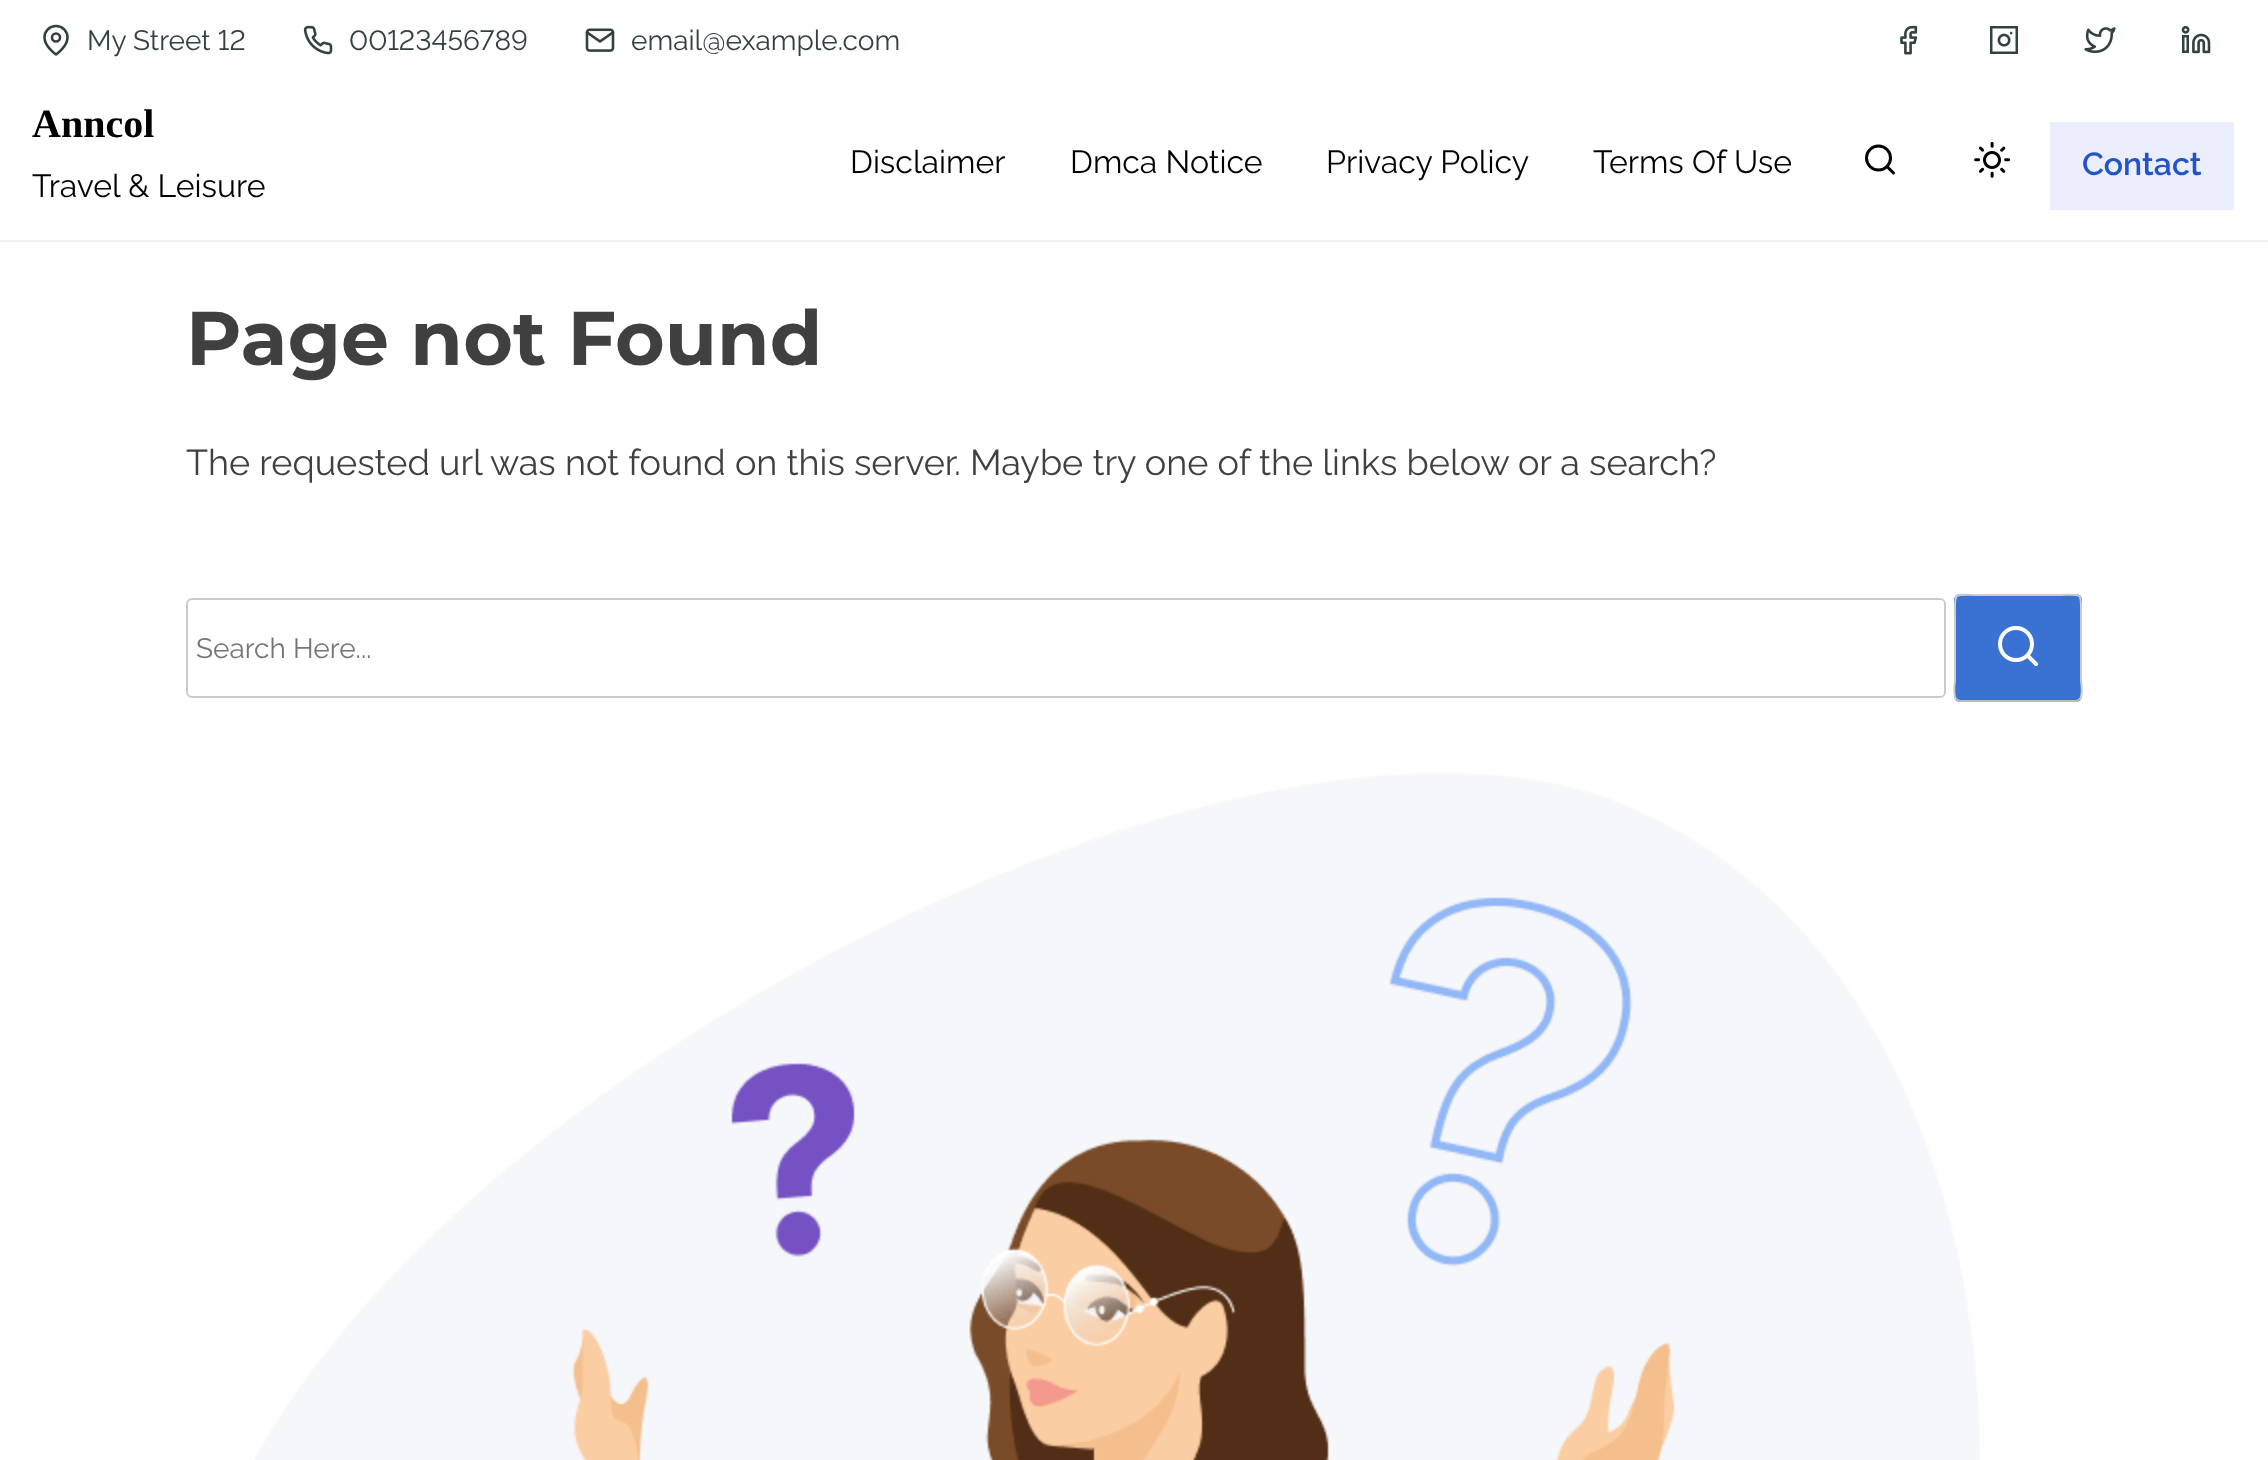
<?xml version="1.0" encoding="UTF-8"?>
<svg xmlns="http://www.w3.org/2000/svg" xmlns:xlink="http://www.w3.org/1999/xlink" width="2268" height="1460">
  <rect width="100%" height="100%" fill="#ffffff" />
  <path d="M 67.5 37.5 c 0 9 -11.5 17 -11.5 17 c 0 0 -11.5 -8 -11.5 -17 c 0 -6.5 5 -11.5 11.5 -11.5 c 6.5 0 11.5 5 11.5 11.5 z" fill="none" stroke="#334142" stroke-width="2.6" stroke-linecap="round" stroke-linejoin="round" />
  <circle cx="56" cy="37.5" r="4" fill="none" stroke="#334142" stroke-width="2.6" />
  <image x="303" y="25" width="30" height="30" xlink:href="image1.png" />
  <image x="585" y="28" width="30" height="24" xlink:href="image2.png" />
  <image x="1900" y="25" width="18" height="30" xlink:href="image3.png" />
  <image x="1990" y="26" width="28" height="28" xlink:href="image4.png" />
  <image x="2084" y="27" width="32" height="27" xlink:href="image5.png" />
  <image x="2181" y="25" width="30" height="29" xlink:href="image6.png" />
  <rect y="240" width="2268" height="2" fill="#f2f2f2" />
  <circle cx="1878.5" cy="158" r="12" fill="none" stroke="#000000" stroke-width="3" />
  <path d="M 1893.5 173 l -6.5 -6.5" fill="none" stroke="#000000" stroke-width="3" stroke-linecap="round" stroke-linejoin="round" />
  <image x="1974" y="142" width="36" height="36" xlink:href="image7.png" />
  <rect x="2050" y="122" width="184" height="88" fill="#ebeefc" />
  <rect x="187" y="599" width="1758" height="98" rx="5" fill="none" stroke="#cccccc" stroke-width="2" />
  <rect x="1954" y="594" width="128" height="108" rx="6" fill="#3a72d3" />
  <path d="M 2079.5 699.5 l -3 1.5 h -117 l -3 -1.5" fill="none" stroke="#bbbbbb" stroke-width="2" />
  <path d="M 1956.5 699.5 c -4 -4 -1.5 -18.5 -1.5 -19.5 v -64 c 0 -25.5 -2.5 -21 24.5 -21 h 77 c 27 0 24.5 -4.5 24.5 21 v 64 c 0 1 2.5 15.5 -1.5 19.5" fill="none" stroke="#cccccc" stroke-width="2" />
  <circle cx="2016" cy="644" r="16" fill="none" stroke="#ffffff" stroke-width="4" />
  <path d="M 2036 664 l -8.5 -8.5" fill="none" stroke="#ffffff" stroke-width="4" stroke-linecap="round" stroke-linejoin="round" />
  <image x="254" y="772" width="1726" height="688" xlink:href="image8.png" />
  <text x="87" y="50" style="font-family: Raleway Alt; font-size: 28px; fill: #334142">My Street 12</text>
  <text x="349" y="50" style="font-family: Raleway Alt; font-size: 28px; fill: #334142">00123456789</text>
  <text x="631" y="50" style="font-family: Raleway; font-size: 28px; fill: #334142">email@example.com</text>
  <text x="32" y="137" style="font-family: Liberation Serif; font-size: 40px; font-weight: bold; fill: #000000">Anncol</text>
  <text x="32" y="197" style="font-family: Raleway; font-size: 32px; fill: #000000">Travel &amp; Leisure</text>
  <text x="850" y="173" style="font-family: Raleway; font-size: 32px; fill: #000000">Disclaimer</text>
  <text x="1070" y="173" style="font-family: Raleway; font-size: 32px; fill: #000000">Dmca Notice</text>
  <text x="1326" y="173" style="font-family: Raleway; font-size: 32px; fill: #000000">Privacy Policy</text>
  <text x="1593" y="173" style="font-family: Raleway; font-size: 32px; fill: #000000">Terms Of Use</text>
  <text x="2082" y="175" style="font-family: Raleway; font-size: 32px; font-weight: 600; fill: #2253cb">Contact</text>
  <text x="186" y="365" style="font-family: Montserrat; font-size: 76px; font-weight: bold; fill: #404040">Page not Found</text>
  <text x="186" y="475" style="font-family: Raleway; font-size: 36px; fill: #404040">The requested url was not found on this server. Maybe try one of the links below or a search?</text>
  <text x="196" y="658" style="font-family: Raleway; font-size: 28px; fill: #757575">Search Here...</text>
</svg>
